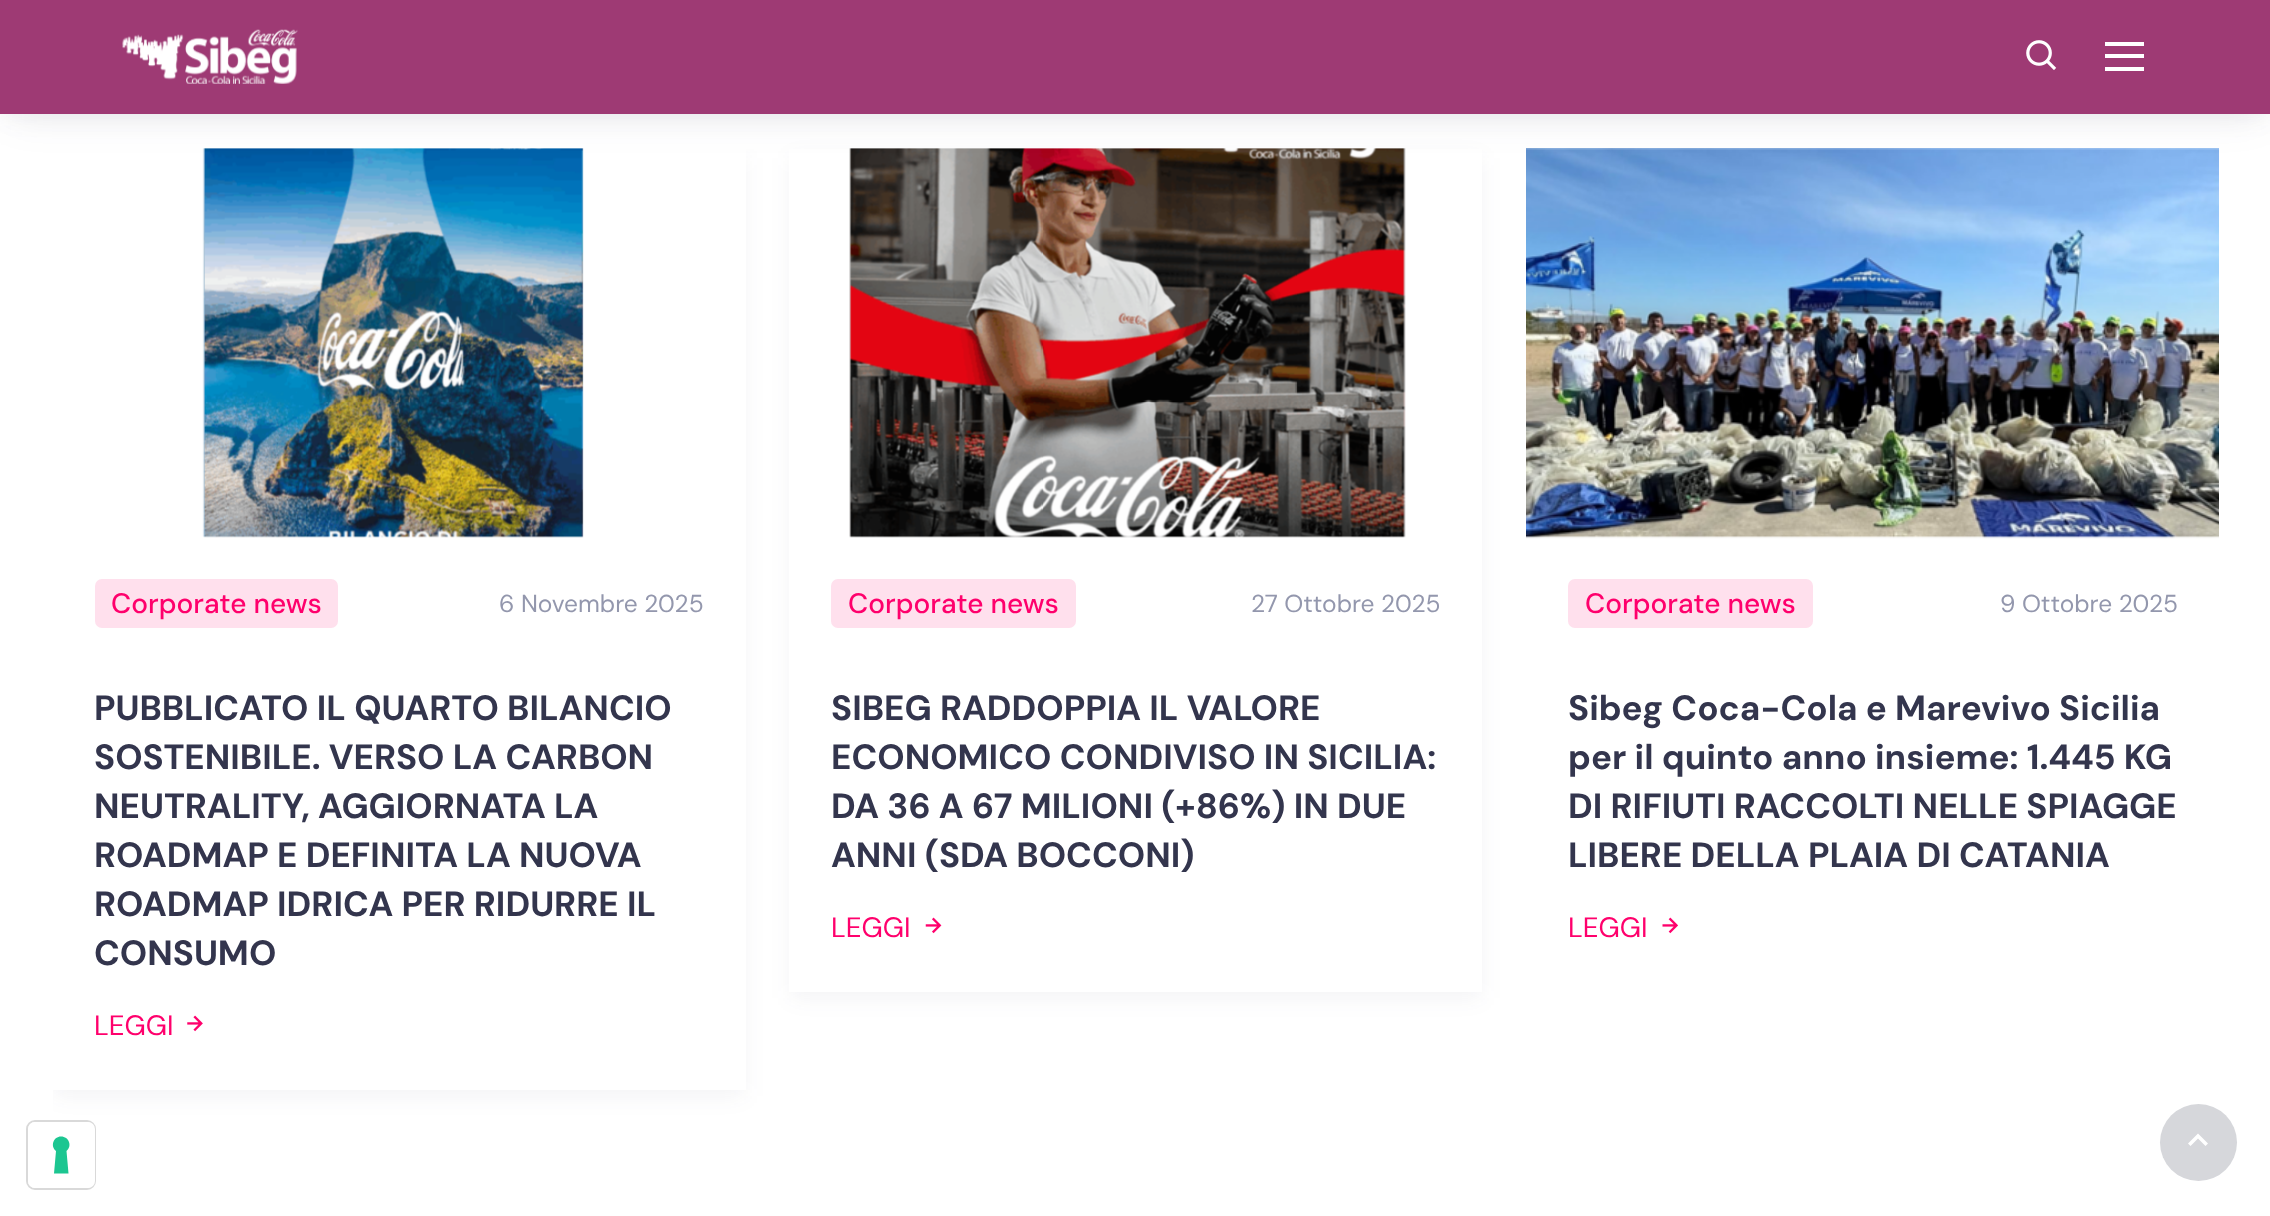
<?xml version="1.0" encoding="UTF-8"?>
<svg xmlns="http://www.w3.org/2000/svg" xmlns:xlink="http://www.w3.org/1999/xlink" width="2270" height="1216">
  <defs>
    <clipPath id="clip1"><rect x="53" y="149" width="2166" height="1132" /></clipPath>
  </defs>
  <rect width="100%" height="100%" fill="#ffffff" />
  <g clip-path="url(#clip1)">
    <rect x="54" y="158" width="690" height="938" fill="#33354d" fill-opacity="0.06" filter="blur(10.5px)" />
  </g>
  <rect x="53" y="149" width="693" height="941" fill="#ffffff" />
  <image x="202" y="148" width="382" height="390" xlink:href="image3.png" />
  <rect x="791" y="158" width="690" height="840" fill="#33354d" fill-opacity="0.06" filter="blur(10.5px)" />
  <rect x="789" y="149" width="693" height="843" fill="#ffffff" />
  <image x="849" y="148" width="557" height="390" xlink:href="image5.png" />
  <image x="1526" y="148" width="693" height="391" xlink:href="image7.png" />
  <rect x="4" y="11" width="2264" height="106" fill="#33354d" fill-opacity="0.06" filter="blur(11.5px)" />
  <rect x="11" y="19" width="2250" height="93" fill="#33354d" fill-opacity="0.1" filter="blur(21.5px)" />
  <rect width="2270" height="114" fill="#9e3a74" />
  <image x="122" y="29" width="176" height="55" xlink:href="image1.png" />
  <image x="2026" y="40" width="31" height="30" xlink:href="image2.png" />
  <rect x="2105" y="54" width="39" height="4" fill="#ffffff" />
  <rect x="2105" y="42" width="39" height="4" fill="#ffffff" />
  <rect x="2105" y="67" width="39" height="4" fill="#ffffff" />
  <rect x="95" y="579" width="243" height="49" rx="7" fill="#ffe0ed" />
  <image x="187" y="1015" width="16" height="17" xlink:href="image4.png" />
  <rect x="831" y="579" width="245" height="49" rx="7" fill="#ffe0ed" />
  <image x="925" y="917" width="17" height="17" xlink:href="image6.png" />
  <rect x="1568" y="579" width="245" height="49" rx="7" fill="#ffe0ed" />
  <image x="1662" y="917" width="16" height="17" xlink:href="image8.png" />
  <rect x="27" y="1121" width="68" height="68" rx="8" fill="none" stroke="#d9d9d9" stroke-width="2" />
  <rect x="28" y="1122" width="67" height="66" rx="7" fill="#ffffff" />
  <path d="M 61 1136.5 c 8 0 11.5 9.5 5.5 14.5 l 2 22.5 h -14.5 l 2 -22.5 c -6 -5 -2.5 -14.5 5 -14.5 z" fill="#1cc691" fill-rule="evenodd" />
  <circle cx="2198.5" cy="1142.5" r="38.5" fill="#d6d7db" />
  <path d="M 2188 1143.5 l 2.5 2.5 l 7.5 -7.5 l 7.5 7.5 l 2.5 -2.5 l -10 -10 z" fill="#ffffff" />
  <text x="111" y="613" style="font-family: DM Sans; font-size: 28px; font-weight: 500; fill: #ff006c">Corporate news</text>
  <text x="499" y="612" style="font-family: DM Sans; font-size: 24.5px; fill: #9397ad">6 Novembre 2025</text>
  <text x="94" y="720" style="font-family: DM Sans; font-size: 35px; font-weight: bold; fill: #33354d">PUBBLICATO IL QUARTO BILANCIO</text>
  <text x="94" y="769" style="font-family: DM Sans; font-size: 35px; font-weight: bold; fill: #33354d">SOSTENIBILE. VERSO LA CARBON</text>
  <text x="94" y="818" style="font-family: DM Sans; font-size: 35px; font-weight: bold; fill: #33354d">NEUTRALITY, AGGIORNATA LA</text>
  <text x="94" y="867" style="font-family: DM Sans; font-size: 35px; font-weight: bold; fill: #33354d">ROADMAP E DEFINITA LA NUOVA</text>
  <text x="94" y="916" style="font-family: DM Sans; font-size: 35px; font-weight: bold; fill: #33354d">ROADMAP IDRICA PER RIDURRE IL</text>
  <text x="94" y="965" style="font-family: DM Sans; font-size: 35px; font-weight: bold; fill: #33354d">CONSUMO</text>
  <text x="94" y="1035" style="font-family: DM Sans; font-size: 28px; fill: #ff006c">LEGGI</text>
  <text x="848" y="613" style="font-family: DM Sans; font-size: 28px; font-weight: 500; fill: #ff006c">Corporate news</text>
  <text x="1251" y="612" style="font-family: DM Sans; font-size: 24.5px; fill: #9397ad">27 Ottobre 2025</text>
  <text x="831" y="720" style="font-family: DM Sans; font-size: 35px; font-weight: bold; fill: #33354d">SIBEG RADDOPPIA IL VALORE</text>
  <text x="831" y="769" style="font-family: DM Sans; font-size: 35px; font-weight: bold; fill: #33354d">ECONOMICO CONDIVISO IN SICILIA:</text>
  <text x="831" y="818" style="font-family: DM Sans; font-size: 35px; font-weight: bold; fill: #33354d">DA 36 A 67 MILIONI (+86%) IN DUE</text>
  <text x="831" y="867" style="font-family: DM Sans; font-size: 35px; font-weight: bold; fill: #33354d">ANNI (SDA BOCCONI)</text>
  <text x="831" y="937" style="font-family: DM Sans; font-size: 28px; fill: #ff006c">LEGGI</text>
  <text x="1585" y="613" style="font-family: DM Sans; font-size: 28px; font-weight: 500; fill: #ff006c">Corporate news</text>
  <text x="2000" y="612" style="font-family: DM Sans; font-size: 24.5px; fill: #9397ad">9 Ottobre 2025</text>
  <text x="1568" y="720" style="font-family: DM Sans; font-size: 35px; font-weight: bold; fill: #33354d">Sibeg Coca-Cola e Marevivo Sicilia</text>
  <text x="1568" y="769" style="font-family: DM Sans; font-size: 35px; font-weight: bold; fill: #33354d">per il quinto anno insieme: 1.445 KG</text>
  <text x="1568" y="818" style="font-family: DM Sans; font-size: 35px; font-weight: bold; fill: #33354d">DI RIFIUTI RACCOLTI NELLE SPIAGGE</text>
  <text x="1568" y="867" style="font-family: DM Sans; font-size: 35px; font-weight: bold; fill: #33354d">LIBERE DELLA PLAIA DI CATANIA</text>
  <text x="1568" y="937" style="font-family: DM Sans; font-size: 28px; fill: #ff006c">LEGGI</text>
</svg>
